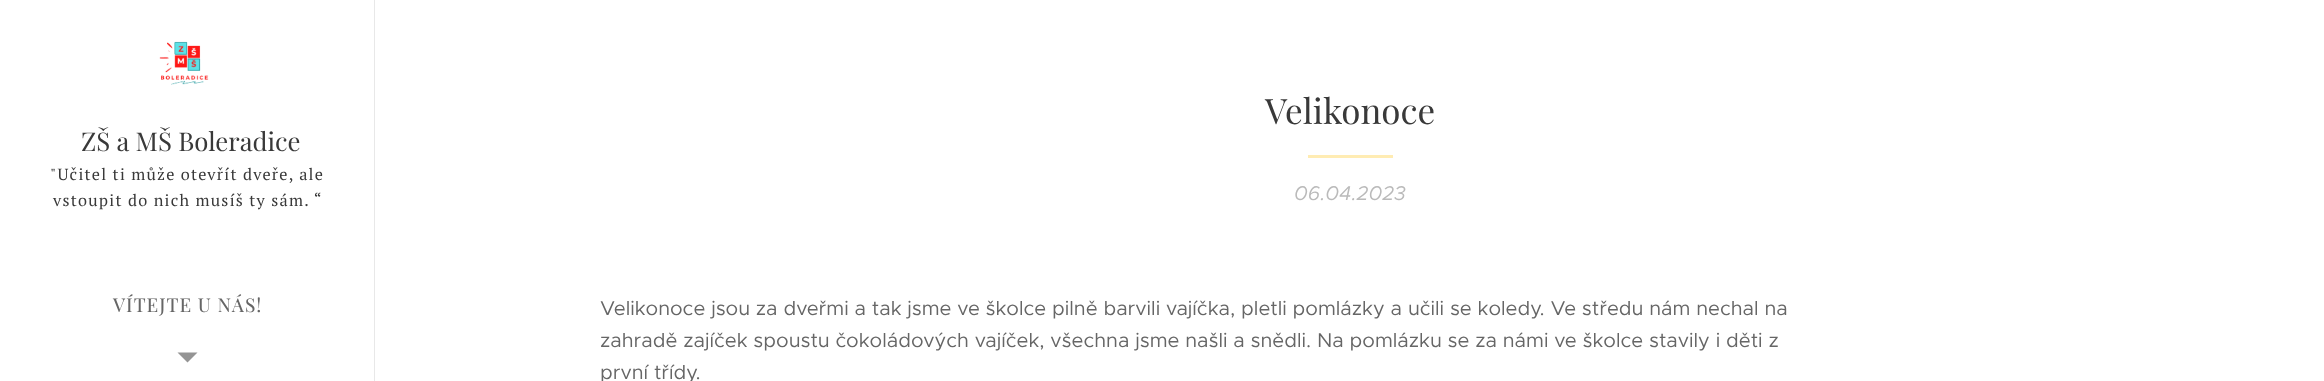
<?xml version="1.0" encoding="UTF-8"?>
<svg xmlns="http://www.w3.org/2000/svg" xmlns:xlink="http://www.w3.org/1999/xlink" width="2324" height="381">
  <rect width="100%" height="100%" fill="#ffffff" />
  <image x="159" y="41" width="50" height="44" xlink:href="image1.png" />
  <path d="M 177.5 352.5 h 20 l -10 10 z" fill="#949494" />
  <rect x="374" width="1" height="381" fill="#e8e8e8" />
  <rect x="1308" y="155" width="85" height="3" fill="#ffecb3" />
  <text x="81" y="151" style="font-family: Playfair Display; font-size: 25.75px; fill: #393939">ZŠ a MŠ Boleradice</text>
  <text x="50" y="180" style="font-family: PT Serif; font-size: 16.25px; letter-spacing: 1.25px; fill: #393939">"Učitel ti může otevřít dveře, ale</text>
  <text x="53" y="206" style="font-family: PT Serif; font-size: 16.25px; letter-spacing: 1.25px; fill: #393939">vstoupit do nich musíš ty sám. “</text>
  <text x="113" y="312" style="font-family: 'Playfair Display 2'; font-size: 19px; letter-spacing: 1px; fill: #666666">VÍTEJTE U NÁS!</text>
  <text x="1265" y="124" style="font-family: Playfair Display; font-size: 35px; fill: #393939">Velikonoce</text>
  <text x="1294" y="200" style="font-family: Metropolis; font-size: 20px; font-style: italic; fill: #bababa">06.04.2023</text>
  <text x="600" y="315" style="font-family: Metropolis; font-size: 20px; fill: #666666">Velikonoce jsou za dveřmi a tak jsme ve školce pilně barvili vajíčka, pletli pomlázky a učili se koledy. Ve středu nám nechal na</text>
  <text x="600" y="347" style="font-family: Metropolis; font-size: 20px; fill: #666666">zahradě zajíček spoustu čokoládových vajíček, všechna jsme našli a snědli. Na pomlázku se za námi ve školce stavily i děti z</text>
  <text x="600" y="379" style="font-family: Metropolis; font-size: 20px; fill: #666666">první třídy.</text>
</svg>
